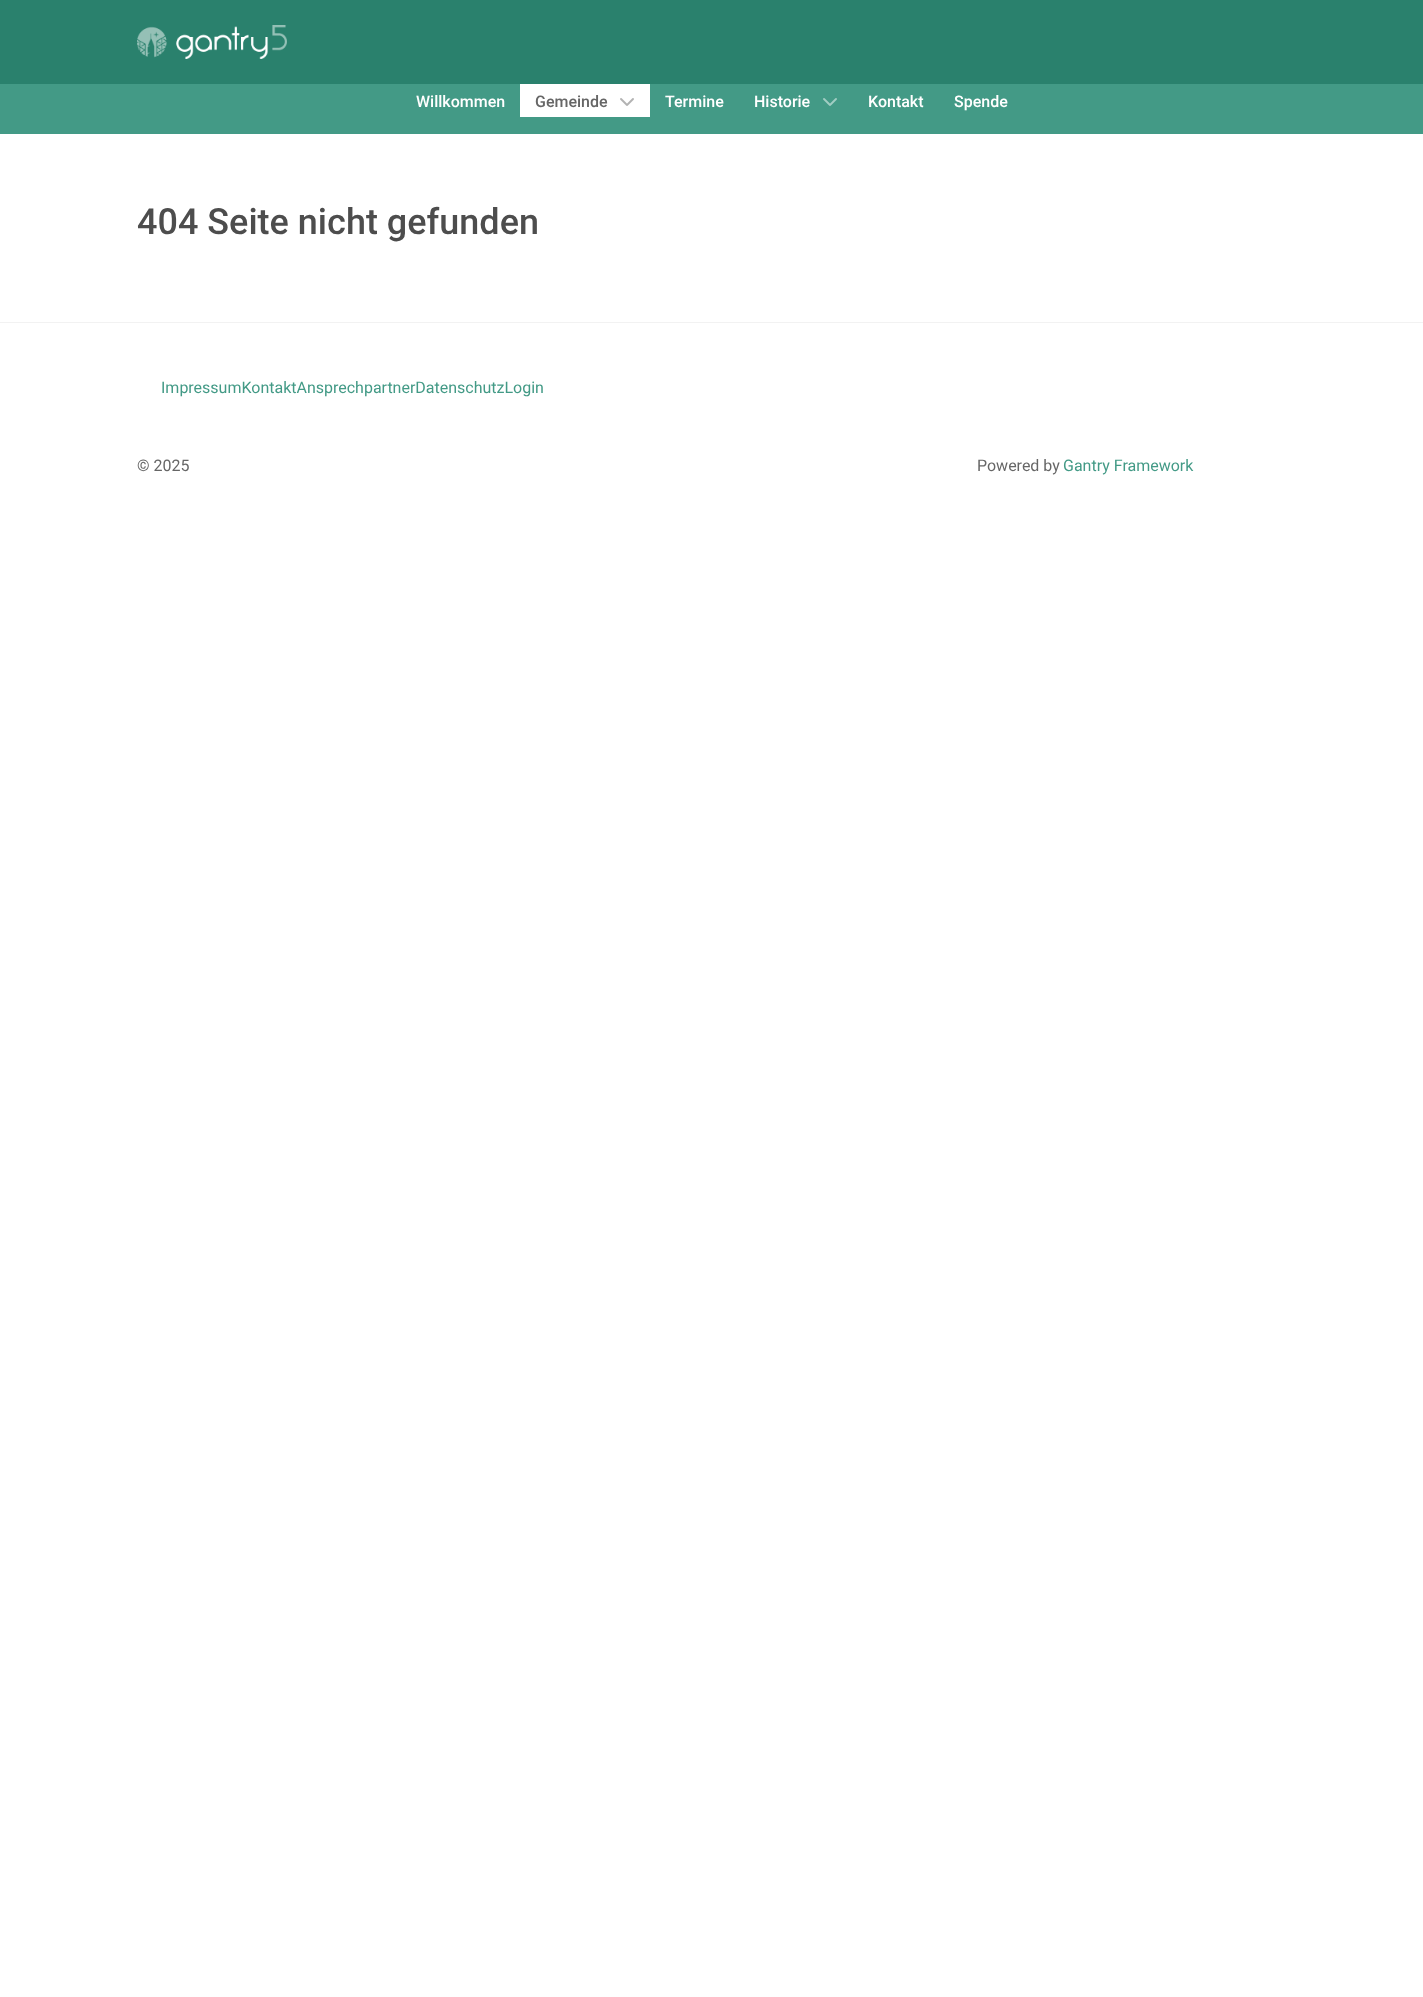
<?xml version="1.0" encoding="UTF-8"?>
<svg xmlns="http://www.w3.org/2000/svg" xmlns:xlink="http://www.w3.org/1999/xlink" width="1423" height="1997">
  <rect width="100%" height="100%" fill="#ffffff" />
  <rect width="1423" height="84" fill="#2a816d" />
  <image x="137" y="25" width="150" height="34" xlink:href="image1.png" />
  <rect y="84" width="1423" height="50" fill="#439a86" />
  <rect x="520" y="84" width="130" height="33" fill="#ffffff" />
  <image x="620" y="98" width="14" height="8" xlink:href="image2.png" />
  <image x="823" y="98" width="14" height="8" xlink:href="image3.png" />
  <rect y="322" width="1423" height="1" fill="#f2f2f2" />
  <text x="416" y="107" style="font-family: Roboto; font-size: 16px; font-weight: 500; fill: #ffffff">Willkommen</text>
  <text x="535" y="107" style="font-family: Roboto; font-size: 16px; font-weight: 500; fill: #666666">Gemeinde</text>
  <text x="665" y="107" style="font-family: Roboto; font-size: 16px; font-weight: 500; fill: #ffffff">Termine</text>
  <text x="754" y="107" style="font-family: Roboto; font-size: 16px; font-weight: 500; fill: #ffffff">Historie</text>
  <text x="868" y="107" style="font-family: Roboto; font-size: 16px; font-weight: 500; fill: #ffffff">Kontakt</text>
  <text x="954" y="107" style="font-family: Roboto; font-size: 16px; font-weight: 500; fill: #ffffff">Spende</text>
  <text x="137" y="234" style="font-family: Roboto; font-size: 36px; font-weight: 500; fill: #4d4d4d">404 Seite nicht gefunden</text>
  <text x="161" y="393" style="font-family: Roboto; font-size: 16px; fill: #439a86">ImpressumKontaktAnsprechpartnerDatenschutzLogin</text>
  <text x="137" y="471" style="font-family: Roboto; font-size: 16px; fill: #666666">© 2025</text>
  <text x="977" y="471" style="font-family: Roboto; font-size: 16px; fill: #666666">Powered by</text>
  <text x="1063" y="471" style="font-family: Roboto; font-size: 16px; fill: #439a86">Gantry Framework</text>
</svg>
